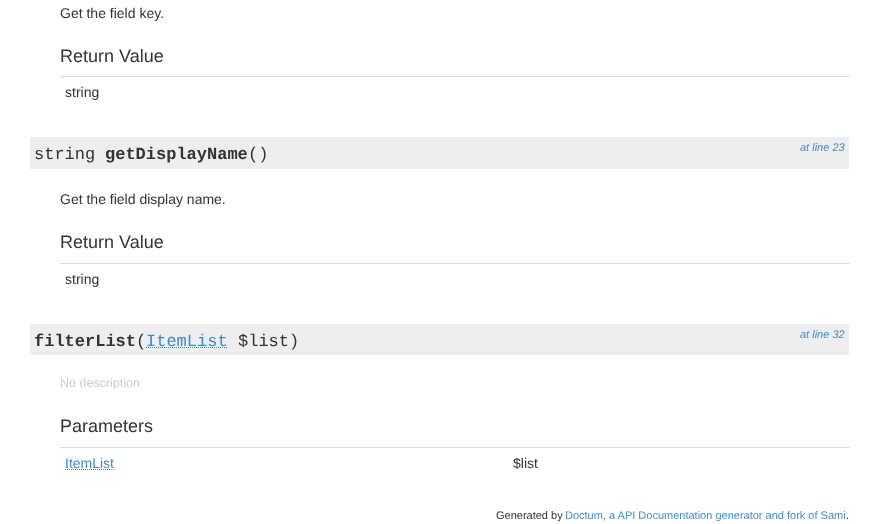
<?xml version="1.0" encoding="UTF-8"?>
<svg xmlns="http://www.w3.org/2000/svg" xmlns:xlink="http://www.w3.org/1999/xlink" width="879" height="524">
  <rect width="100%" height="100%" fill="#ffffff" />
  <rect x="60" y="76" width="790" height="1" fill="#dddddd" />
  <rect x="30" y="137" width="819" height="32" fill="#eeeeee" />
  <rect x="60" y="263" width="790" height="1" fill="#dddddd" />
  <rect x="30" y="324" width="819" height="31" fill="#eeeeee" />
  <path d="M 146 347.5 h 82" fill="none" stroke="#428bca" stroke-dasharray="1 1" />
  <rect x="60" y="447" width="790" height="1" fill="#dddddd" />
  <path d="M 65 469.5 h 49" fill="none" stroke="#428bca" stroke-dasharray="1 1" />
  <text x="60" y="18" style="font-family: Liberation Sans; font-size: 14px; fill: #333333">Get the field key.</text>
  <text x="60" y="62" style="font-family: Liberation Sans; font-size: 18px; fill: #333333">Return Value</text>
  <text x="65" y="97" style="font-family: Liberation Sans; font-size: 14px; fill: #333333">string</text>
  <text x="34" y="159" style="font-family: Liberation Mono; font-size: 17px; fill: #333333">string</text>
  <text x="105" y="159" style="font-family: Liberation Mono; font-size: 17px; font-weight: bold; fill: #333333">getDisplayName</text>
  <text x="248" y="159" style="font-family: Liberation Mono; font-size: 17px; fill: #333333">()</text>
  <text x="800" y="151" style="font-family: Liberation Sans; font-size: 11px; font-style: italic; fill: #428bca">at line 23</text>
  <text x="60" y="204" style="font-family: Liberation Sans; font-size: 14px; fill: #333333">Get the field display name.</text>
  <text x="60" y="248" style="font-family: Liberation Sans; font-size: 18px; fill: #333333">Return Value</text>
  <text x="65" y="284" style="font-family: Liberation Sans; font-size: 14px; fill: #333333">string</text>
  <text x="34" y="346" style="font-family: Liberation Mono; font-size: 17px; font-weight: bold; fill: #333333">filterList</text>
  <text x="136" y="346" style="font-family: Liberation Mono; font-size: 17px; fill: #333333">(</text>
  <text x="146" y="346" style="font-family: Liberation Mono; font-size: 17px; fill: #428bca">ItemList</text>
  <text x="238" y="346" style="font-family: Liberation Mono; font-size: 17px; fill: #333333">$list)</text>
  <text x="800" y="338" style="font-family: Liberation Sans; font-size: 11px; font-style: italic; fill: #428bca">at line 32</text>
  <text x="60" y="387" style="font-family: Liberation Sans; font-size: 12.5px; fill: #cccccc">No description</text>
  <text x="60" y="432" style="font-family: Liberation Sans; font-size: 18px; fill: #333333">Parameters</text>
  <text x="65" y="468" style="font-family: Liberation Sans; font-size: 14px; fill: #428bca">ItemList</text>
  <text x="513" y="468" style="font-family: Liberation Sans; font-size: 14px; fill: #333333">$list</text>
  <text x="496" y="519" style="font-family: Liberation Sans; font-size: 11px; fill: #333333">Generated by</text>
  <text x="565" y="519" style="font-family: Liberation Sans; font-size: 11px; fill: #428bca">Doctum, a API Documentation generator and fork of Sami</text>
  <text x="846" y="519" style="font-family: Liberation Sans; font-size: 11px; fill: #333333">.</text>
</svg>
